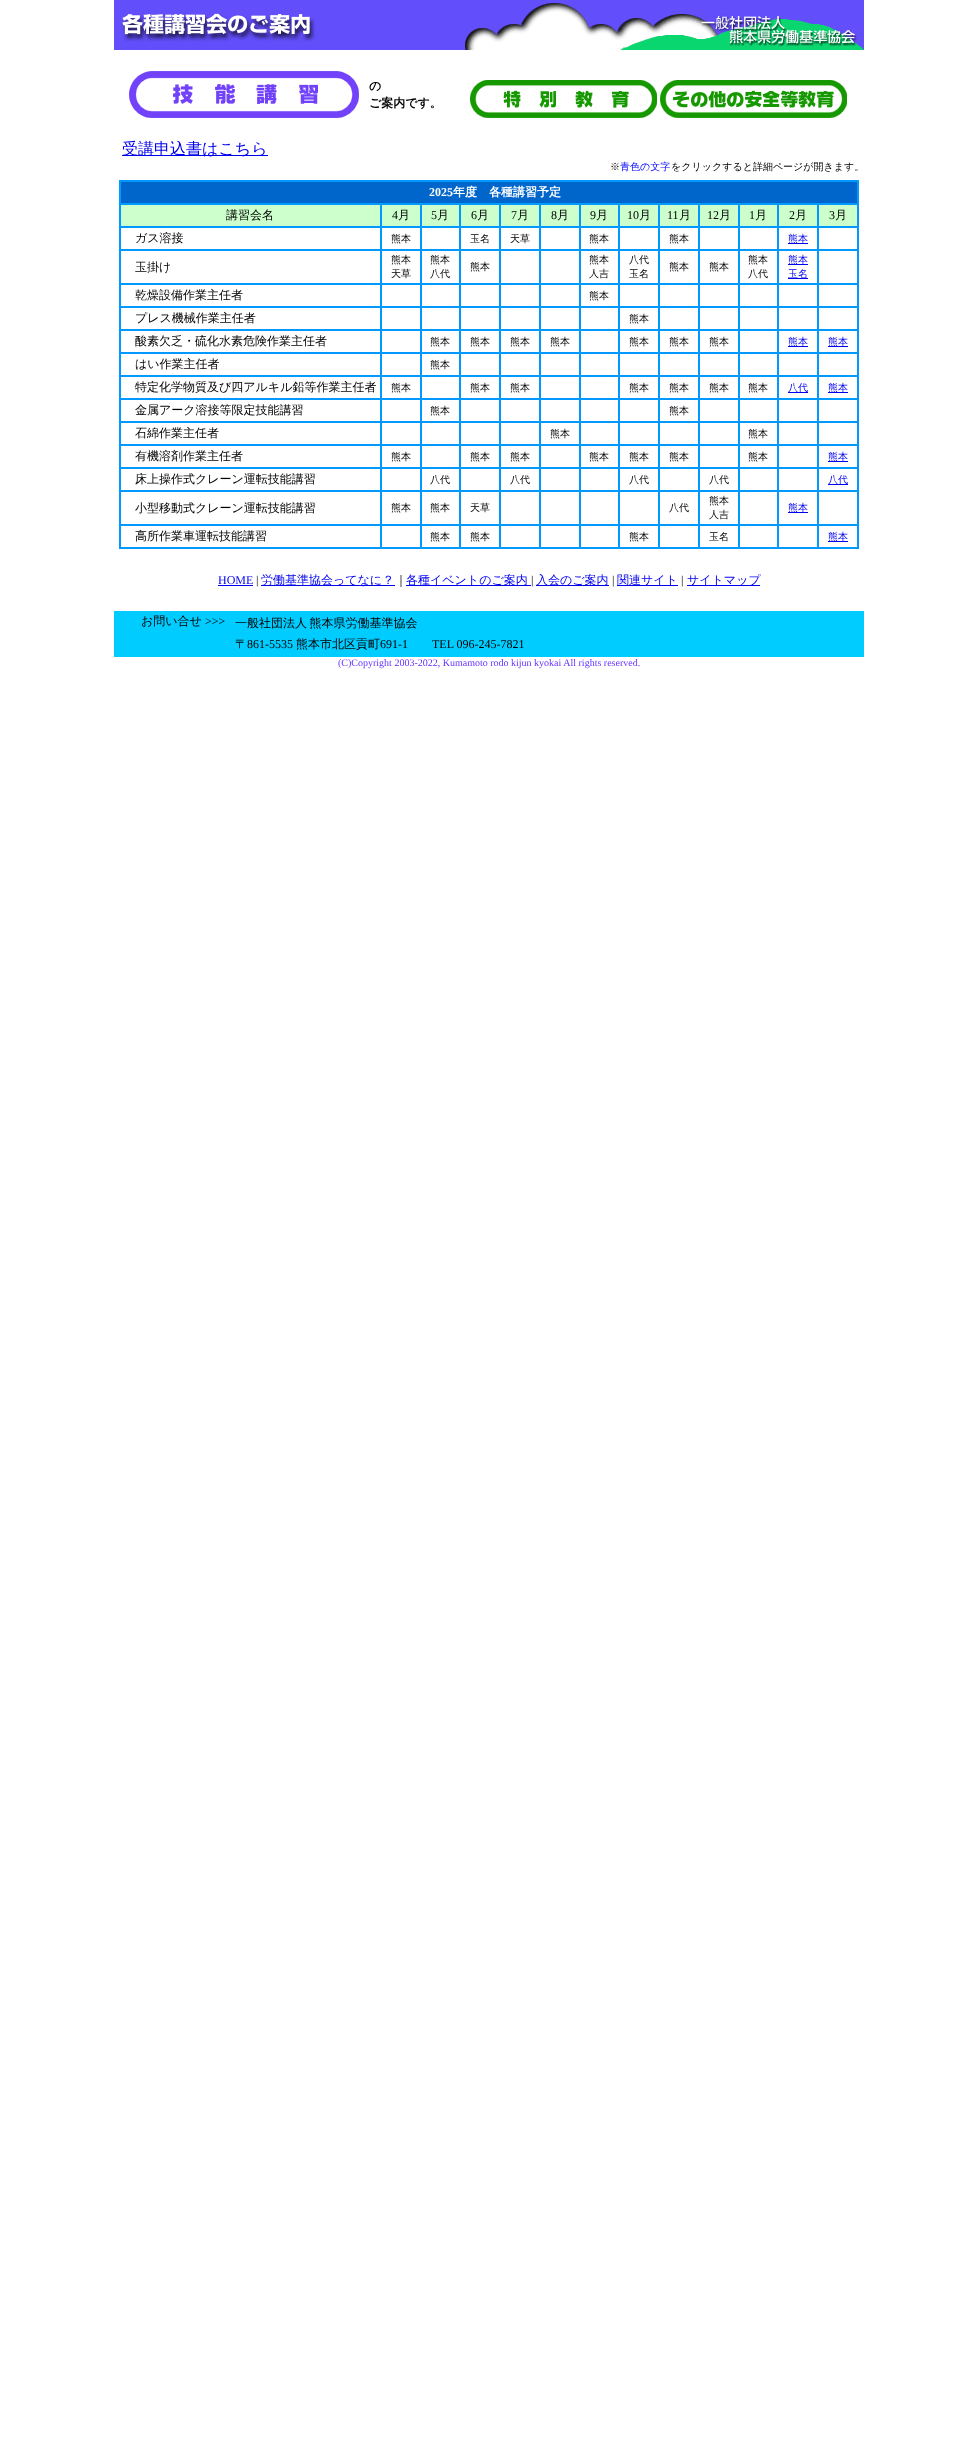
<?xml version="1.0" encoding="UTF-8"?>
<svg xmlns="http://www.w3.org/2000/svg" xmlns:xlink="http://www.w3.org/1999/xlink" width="978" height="2440">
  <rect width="100%" height="100%" fill="#ffffff" />
  <image x="114" y="0" width="750" height="50" xlink:href="image1.png" />
  <image x="129" y="71" width="230" height="47" xlink:href="image2.png" />
  <image x="470" y="80" width="187" height="38" xlink:href="image3.png" />
  <image x="660" y="80" width="187" height="38" xlink:href="image4.png" />
  <rect x="122" y="155" width="146" height="1" fill="#0000ee" />
  <rect x="119.5" y="180.5" width="739" height="368" fill="none" stroke="#0099ff" />
  <rect x="120.5" y="181.5" width="737" height="22" fill="#0066cc" stroke="#0099ff" />
  <rect x="121" y="205" width="736" height="21" fill="#ccffcc" />
  <rect x="120.5" y="204.5" width="260" height="22" fill="none" stroke="#0099ff" />
  <rect x="381.5" y="204.5" width="39" height="22" fill="none" stroke="#0099ff" />
  <rect x="421.5" y="204.5" width="38" height="22" fill="none" stroke="#0099ff" />
  <rect x="460.5" y="204.5" width="39" height="22" fill="none" stroke="#0099ff" />
  <rect x="500.5" y="204.5" width="39" height="22" fill="none" stroke="#0099ff" />
  <rect x="540.5" y="204.5" width="39" height="22" fill="none" stroke="#0099ff" />
  <rect x="580.5" y="204.5" width="38" height="22" fill="none" stroke="#0099ff" />
  <rect x="619.5" y="204.5" width="39" height="22" fill="none" stroke="#0099ff" />
  <rect x="659.5" y="204.5" width="39" height="22" fill="none" stroke="#0099ff" />
  <rect x="699.5" y="204.5" width="39" height="22" fill="none" stroke="#0099ff" />
  <rect x="739.5" y="204.5" width="38" height="22" fill="none" stroke="#0099ff" />
  <rect x="778.5" y="204.5" width="39" height="22" fill="none" stroke="#0099ff" />
  <rect x="818.5" y="204.5" width="39" height="22" fill="none" stroke="#0099ff" />
  <rect x="120.5" y="227.5" width="260" height="22" fill="none" stroke="#0099ff" />
  <rect x="381.5" y="227.5" width="39" height="22" fill="none" stroke="#0099ff" />
  <rect x="421.5" y="227.5" width="38" height="22" fill="none" stroke="#0099ff" />
  <rect x="460.5" y="227.5" width="39" height="22" fill="none" stroke="#0099ff" />
  <rect x="500.5" y="227.5" width="39" height="22" fill="none" stroke="#0099ff" />
  <rect x="540.5" y="227.5" width="39" height="22" fill="none" stroke="#0099ff" />
  <rect x="580.5" y="227.5" width="38" height="22" fill="none" stroke="#0099ff" />
  <rect x="619.5" y="227.5" width="39" height="22" fill="none" stroke="#0099ff" />
  <rect x="659.5" y="227.5" width="39" height="22" fill="none" stroke="#0099ff" />
  <rect x="699.5" y="227.5" width="39" height="22" fill="none" stroke="#0099ff" />
  <rect x="739.5" y="227.5" width="38" height="22" fill="none" stroke="#0099ff" />
  <rect x="778.5" y="227.5" width="39" height="22" fill="none" stroke="#0099ff" />
  <rect x="788" y="243" width="20" height="1" fill="#0000ee" />
  <rect x="818.5" y="227.5" width="39" height="22" fill="none" stroke="#0099ff" />
  <rect x="120.5" y="250.5" width="260" height="33" fill="none" stroke="#0099ff" />
  <rect x="381.5" y="250.5" width="39" height="33" fill="none" stroke="#0099ff" />
  <rect x="421.5" y="250.5" width="38" height="33" fill="none" stroke="#0099ff" />
  <rect x="460.5" y="250.5" width="39" height="33" fill="none" stroke="#0099ff" />
  <rect x="500.5" y="250.5" width="39" height="33" fill="none" stroke="#0099ff" />
  <rect x="540.5" y="250.5" width="39" height="33" fill="none" stroke="#0099ff" />
  <rect x="580.5" y="250.5" width="38" height="33" fill="none" stroke="#0099ff" />
  <rect x="619.5" y="250.5" width="39" height="33" fill="none" stroke="#0099ff" />
  <rect x="659.5" y="250.5" width="39" height="33" fill="none" stroke="#0099ff" />
  <rect x="699.5" y="250.5" width="39" height="33" fill="none" stroke="#0099ff" />
  <rect x="739.5" y="250.5" width="38" height="33" fill="none" stroke="#0099ff" />
  <rect x="778.5" y="250.5" width="39" height="33" fill="none" stroke="#0099ff" />
  <rect x="788" y="264" width="20" height="1" fill="#0000ee" />
  <rect x="788" y="278" width="20" height="1" fill="#0000ee" />
  <rect x="818.5" y="250.5" width="39" height="33" fill="none" stroke="#0099ff" />
  <rect x="120.5" y="284.5" width="260" height="22" fill="none" stroke="#0099ff" />
  <rect x="381.5" y="284.5" width="39" height="22" fill="none" stroke="#0099ff" />
  <rect x="421.5" y="284.5" width="38" height="22" fill="none" stroke="#0099ff" />
  <rect x="460.5" y="284.5" width="39" height="22" fill="none" stroke="#0099ff" />
  <rect x="500.5" y="284.5" width="39" height="22" fill="none" stroke="#0099ff" />
  <rect x="540.5" y="284.5" width="39" height="22" fill="none" stroke="#0099ff" />
  <rect x="580.5" y="284.5" width="38" height="22" fill="none" stroke="#0099ff" />
  <rect x="619.5" y="284.5" width="39" height="22" fill="none" stroke="#0099ff" />
  <rect x="659.5" y="284.5" width="39" height="22" fill="none" stroke="#0099ff" />
  <rect x="699.5" y="284.5" width="39" height="22" fill="none" stroke="#0099ff" />
  <rect x="739.5" y="284.5" width="38" height="22" fill="none" stroke="#0099ff" />
  <rect x="778.5" y="284.5" width="39" height="22" fill="none" stroke="#0099ff" />
  <rect x="818.5" y="284.5" width="39" height="22" fill="none" stroke="#0099ff" />
  <rect x="120.5" y="307.5" width="260" height="22" fill="none" stroke="#0099ff" />
  <rect x="381.5" y="307.5" width="39" height="22" fill="none" stroke="#0099ff" />
  <rect x="421.5" y="307.5" width="38" height="22" fill="none" stroke="#0099ff" />
  <rect x="460.5" y="307.5" width="39" height="22" fill="none" stroke="#0099ff" />
  <rect x="500.5" y="307.5" width="39" height="22" fill="none" stroke="#0099ff" />
  <rect x="540.5" y="307.5" width="39" height="22" fill="none" stroke="#0099ff" />
  <rect x="580.5" y="307.5" width="38" height="22" fill="none" stroke="#0099ff" />
  <rect x="619.5" y="307.5" width="39" height="22" fill="none" stroke="#0099ff" />
  <rect x="659.5" y="307.5" width="39" height="22" fill="none" stroke="#0099ff" />
  <rect x="699.5" y="307.5" width="39" height="22" fill="none" stroke="#0099ff" />
  <rect x="739.5" y="307.5" width="38" height="22" fill="none" stroke="#0099ff" />
  <rect x="778.5" y="307.5" width="39" height="22" fill="none" stroke="#0099ff" />
  <rect x="818.5" y="307.5" width="39" height="22" fill="none" stroke="#0099ff" />
  <rect x="120.5" y="330.5" width="260" height="22" fill="none" stroke="#0099ff" />
  <rect x="381.5" y="330.5" width="39" height="22" fill="none" stroke="#0099ff" />
  <rect x="421.5" y="330.5" width="38" height="22" fill="none" stroke="#0099ff" />
  <rect x="460.5" y="330.5" width="39" height="22" fill="none" stroke="#0099ff" />
  <rect x="500.5" y="330.5" width="39" height="22" fill="none" stroke="#0099ff" />
  <rect x="540.5" y="330.5" width="39" height="22" fill="none" stroke="#0099ff" />
  <rect x="580.5" y="330.5" width="38" height="22" fill="none" stroke="#0099ff" />
  <rect x="619.5" y="330.5" width="39" height="22" fill="none" stroke="#0099ff" />
  <rect x="659.5" y="330.5" width="39" height="22" fill="none" stroke="#0099ff" />
  <rect x="699.5" y="330.5" width="39" height="22" fill="none" stroke="#0099ff" />
  <rect x="739.5" y="330.5" width="38" height="22" fill="none" stroke="#0099ff" />
  <rect x="778.5" y="330.5" width="39" height="22" fill="none" stroke="#0099ff" />
  <rect x="788" y="346" width="20" height="1" fill="#0000ee" />
  <rect x="818.5" y="330.5" width="39" height="22" fill="none" stroke="#0099ff" />
  <rect x="828" y="346" width="20" height="1" fill="#0000ee" />
  <rect x="120.5" y="353.5" width="260" height="22" fill="none" stroke="#0099ff" />
  <rect x="381.5" y="353.5" width="39" height="22" fill="none" stroke="#0099ff" />
  <rect x="421.5" y="353.5" width="38" height="22" fill="none" stroke="#0099ff" />
  <rect x="460.5" y="353.5" width="39" height="22" fill="none" stroke="#0099ff" />
  <rect x="500.5" y="353.5" width="39" height="22" fill="none" stroke="#0099ff" />
  <rect x="540.5" y="353.5" width="39" height="22" fill="none" stroke="#0099ff" />
  <rect x="580.5" y="353.5" width="38" height="22" fill="none" stroke="#0099ff" />
  <rect x="619.5" y="353.5" width="39" height="22" fill="none" stroke="#0099ff" />
  <rect x="659.5" y="353.5" width="39" height="22" fill="none" stroke="#0099ff" />
  <rect x="699.5" y="353.5" width="39" height="22" fill="none" stroke="#0099ff" />
  <rect x="739.5" y="353.5" width="38" height="22" fill="none" stroke="#0099ff" />
  <rect x="778.5" y="353.5" width="39" height="22" fill="none" stroke="#0099ff" />
  <rect x="818.5" y="353.5" width="39" height="22" fill="none" stroke="#0099ff" />
  <rect x="120.5" y="376.5" width="260" height="22" fill="none" stroke="#0099ff" />
  <rect x="381.5" y="376.5" width="39" height="22" fill="none" stroke="#0099ff" />
  <rect x="421.5" y="376.5" width="38" height="22" fill="none" stroke="#0099ff" />
  <rect x="460.5" y="376.5" width="39" height="22" fill="none" stroke="#0099ff" />
  <rect x="500.5" y="376.5" width="39" height="22" fill="none" stroke="#0099ff" />
  <rect x="540.5" y="376.5" width="39" height="22" fill="none" stroke="#0099ff" />
  <rect x="580.5" y="376.5" width="38" height="22" fill="none" stroke="#0099ff" />
  <rect x="619.5" y="376.5" width="39" height="22" fill="none" stroke="#0099ff" />
  <rect x="659.5" y="376.5" width="39" height="22" fill="none" stroke="#0099ff" />
  <rect x="699.5" y="376.5" width="39" height="22" fill="none" stroke="#0099ff" />
  <rect x="739.5" y="376.5" width="38" height="22" fill="none" stroke="#0099ff" />
  <rect x="778.5" y="376.5" width="39" height="22" fill="none" stroke="#0099ff" />
  <rect x="788" y="392" width="20" height="1" fill="#0000ee" />
  <rect x="818.5" y="376.5" width="39" height="22" fill="none" stroke="#0099ff" />
  <rect x="828" y="392" width="20" height="1" fill="#0000ee" />
  <rect x="120.5" y="399.5" width="260" height="22" fill="none" stroke="#0099ff" />
  <rect x="381.5" y="399.5" width="39" height="22" fill="none" stroke="#0099ff" />
  <rect x="421.5" y="399.5" width="38" height="22" fill="none" stroke="#0099ff" />
  <rect x="460.5" y="399.5" width="39" height="22" fill="none" stroke="#0099ff" />
  <rect x="500.5" y="399.5" width="39" height="22" fill="none" stroke="#0099ff" />
  <rect x="540.5" y="399.5" width="39" height="22" fill="none" stroke="#0099ff" />
  <rect x="580.5" y="399.5" width="38" height="22" fill="none" stroke="#0099ff" />
  <rect x="619.5" y="399.5" width="39" height="22" fill="none" stroke="#0099ff" />
  <rect x="659.5" y="399.5" width="39" height="22" fill="none" stroke="#0099ff" />
  <rect x="699.5" y="399.5" width="39" height="22" fill="none" stroke="#0099ff" />
  <rect x="739.5" y="399.5" width="38" height="22" fill="none" stroke="#0099ff" />
  <rect x="778.5" y="399.5" width="39" height="22" fill="none" stroke="#0099ff" />
  <rect x="818.5" y="399.5" width="39" height="22" fill="none" stroke="#0099ff" />
  <rect x="120.5" y="422.5" width="260" height="22" fill="none" stroke="#0099ff" />
  <rect x="381.5" y="422.5" width="39" height="22" fill="none" stroke="#0099ff" />
  <rect x="421.5" y="422.5" width="38" height="22" fill="none" stroke="#0099ff" />
  <rect x="460.5" y="422.5" width="39" height="22" fill="none" stroke="#0099ff" />
  <rect x="500.5" y="422.5" width="39" height="22" fill="none" stroke="#0099ff" />
  <rect x="540.5" y="422.5" width="39" height="22" fill="none" stroke="#0099ff" />
  <rect x="580.5" y="422.5" width="38" height="22" fill="none" stroke="#0099ff" />
  <rect x="619.5" y="422.5" width="39" height="22" fill="none" stroke="#0099ff" />
  <rect x="659.5" y="422.5" width="39" height="22" fill="none" stroke="#0099ff" />
  <rect x="699.5" y="422.5" width="39" height="22" fill="none" stroke="#0099ff" />
  <rect x="739.5" y="422.5" width="38" height="22" fill="none" stroke="#0099ff" />
  <rect x="778.5" y="422.5" width="39" height="22" fill="none" stroke="#0099ff" />
  <rect x="818.5" y="422.5" width="39" height="22" fill="none" stroke="#0099ff" />
  <rect x="120.5" y="445.5" width="260" height="22" fill="none" stroke="#0099ff" />
  <rect x="381.5" y="445.5" width="39" height="22" fill="none" stroke="#0099ff" />
  <rect x="421.5" y="445.5" width="38" height="22" fill="none" stroke="#0099ff" />
  <rect x="460.5" y="445.5" width="39" height="22" fill="none" stroke="#0099ff" />
  <rect x="500.5" y="445.5" width="39" height="22" fill="none" stroke="#0099ff" />
  <rect x="540.5" y="445.5" width="39" height="22" fill="none" stroke="#0099ff" />
  <rect x="580.5" y="445.5" width="38" height="22" fill="none" stroke="#0099ff" />
  <rect x="619.5" y="445.5" width="39" height="22" fill="none" stroke="#0099ff" />
  <rect x="659.5" y="445.5" width="39" height="22" fill="none" stroke="#0099ff" />
  <rect x="699.5" y="445.5" width="39" height="22" fill="none" stroke="#0099ff" />
  <rect x="739.5" y="445.5" width="38" height="22" fill="none" stroke="#0099ff" />
  <rect x="778.5" y="445.5" width="39" height="22" fill="none" stroke="#0099ff" />
  <rect x="818.5" y="445.5" width="39" height="22" fill="none" stroke="#0099ff" />
  <rect x="828" y="461" width="20" height="1" fill="#0000ee" />
  <rect x="120.5" y="468.5" width="260" height="22" fill="none" stroke="#0099ff" />
  <rect x="381.5" y="468.5" width="39" height="22" fill="none" stroke="#0099ff" />
  <rect x="421.5" y="468.5" width="38" height="22" fill="none" stroke="#0099ff" />
  <rect x="460.5" y="468.5" width="39" height="22" fill="none" stroke="#0099ff" />
  <rect x="500.5" y="468.5" width="39" height="22" fill="none" stroke="#0099ff" />
  <rect x="540.5" y="468.5" width="39" height="22" fill="none" stroke="#0099ff" />
  <rect x="580.5" y="468.5" width="38" height="22" fill="none" stroke="#0099ff" />
  <rect x="619.5" y="468.5" width="39" height="22" fill="none" stroke="#0099ff" />
  <rect x="659.5" y="468.5" width="39" height="22" fill="none" stroke="#0099ff" />
  <rect x="699.5" y="468.5" width="39" height="22" fill="none" stroke="#0099ff" />
  <rect x="739.5" y="468.5" width="38" height="22" fill="none" stroke="#0099ff" />
  <rect x="778.5" y="468.5" width="39" height="22" fill="none" stroke="#0099ff" />
  <rect x="818.5" y="468.5" width="39" height="22" fill="none" stroke="#0099ff" />
  <rect x="828" y="484" width="20" height="1" fill="#0000ee" />
  <rect x="120.5" y="491.5" width="260" height="33" fill="none" stroke="#0099ff" />
  <rect x="381.5" y="491.5" width="39" height="33" fill="none" stroke="#0099ff" />
  <rect x="421.5" y="491.5" width="38" height="33" fill="none" stroke="#0099ff" />
  <rect x="460.5" y="491.5" width="39" height="33" fill="none" stroke="#0099ff" />
  <rect x="500.5" y="491.5" width="39" height="33" fill="none" stroke="#0099ff" />
  <rect x="540.5" y="491.5" width="39" height="33" fill="none" stroke="#0099ff" />
  <rect x="580.5" y="491.5" width="38" height="33" fill="none" stroke="#0099ff" />
  <rect x="619.5" y="491.5" width="39" height="33" fill="none" stroke="#0099ff" />
  <rect x="659.5" y="491.5" width="39" height="33" fill="none" stroke="#0099ff" />
  <rect x="699.5" y="491.5" width="39" height="33" fill="none" stroke="#0099ff" />
  <rect x="739.5" y="491.5" width="38" height="33" fill="none" stroke="#0099ff" />
  <rect x="778.5" y="491.5" width="39" height="33" fill="none" stroke="#0099ff" />
  <rect x="788" y="512" width="20" height="1" fill="#0000ee" />
  <rect x="818.5" y="491.5" width="39" height="33" fill="none" stroke="#0099ff" />
  <rect x="120.5" y="525.5" width="260" height="22" fill="none" stroke="#0099ff" />
  <rect x="381.5" y="525.5" width="39" height="22" fill="none" stroke="#0099ff" />
  <rect x="421.5" y="525.5" width="38" height="22" fill="none" stroke="#0099ff" />
  <rect x="460.5" y="525.5" width="39" height="22" fill="none" stroke="#0099ff" />
  <rect x="500.5" y="525.5" width="39" height="22" fill="none" stroke="#0099ff" />
  <rect x="540.5" y="525.5" width="39" height="22" fill="none" stroke="#0099ff" />
  <rect x="580.5" y="525.5" width="38" height="22" fill="none" stroke="#0099ff" />
  <rect x="619.5" y="525.5" width="39" height="22" fill="none" stroke="#0099ff" />
  <rect x="659.5" y="525.5" width="39" height="22" fill="none" stroke="#0099ff" />
  <rect x="699.5" y="525.5" width="39" height="22" fill="none" stroke="#0099ff" />
  <rect x="739.5" y="525.5" width="38" height="22" fill="none" stroke="#0099ff" />
  <rect x="778.5" y="525.5" width="39" height="22" fill="none" stroke="#0099ff" />
  <rect x="818.5" y="525.5" width="39" height="22" fill="none" stroke="#0099ff" />
  <rect x="828" y="541" width="20" height="1" fill="#0000ee" />
  <rect x="218" y="585" width="35" height="1" fill="#0000ee" />
  <rect x="261" y="585" width="134" height="1" fill="#0000ee" />
  <rect x="406" y="585" width="125" height="1" fill="#0000ee" />
  <rect x="536" y="585" width="73" height="1" fill="#0000ee" />
  <rect x="617" y="585" width="61" height="1" fill="#0000ee" />
  <rect x="687" y="585" width="73" height="1" fill="#0000ee" />
  <rect x="114" y="611" width="750" height="46" fill="#00ccff" />
  <text x="369" y="90" style="font-family: WenQuanYi Zen Hei; font-size: 12px; font-weight: bold; fill: #000000">の</text>
  <text x="369" y="107" style="font-family: WenQuanYi Zen Hei; font-size: 12px; font-weight: bold; fill: #000000">ご案内です。</text>
  <text x="122" y="154" style="font-family: WenQuanYi Zen Hei; font-size: 16px; font-weight: 500; fill: #0000ee">受講申込書はこちら</text>
  <text x="610" y="170" style="font-family: WenQuanYi Zen Hei; font-size: 10px; font-weight: 500; fill: #000000">※</text>
  <text x="620" y="170" style="font-family: WenQuanYi Zen Hei; font-size: 10px; font-weight: 500; fill: #0000ff">青色の文字</text>
  <text x="671" y="170" style="font-family: WenQuanYi Zen Hei; font-size: 10px; font-weight: 500; fill: #000000">をクリックすると詳細ページが開きます。</text>
  <text x="429" y="196" style="font-family: Liberation Serif; font-size: 12px; font-weight: bold; fill: #ffffff">2025</text>
  <text x="453" y="196" style="font-family: WenQuanYi Zen Hei; font-size: 12px; font-weight: bold; fill: #ffffff">年度　各種講習予定</text>
  <text x="226" y="219" style="font-family: WenQuanYi Zen Hei; font-size: 12px; font-weight: 500; fill: #000000">講習会名</text>
  <text x="392" y="219" style="font-family: Liberation Serif; font-size: 12px; fill: #000000">4</text>
  <text x="398" y="219" style="font-family: WenQuanYi Zen Hei; font-size: 12px; font-weight: 500; fill: #000000">月</text>
  <text x="431" y="219" style="font-family: Liberation Serif; font-size: 12px; fill: #000000">5</text>
  <text x="437" y="219" style="font-family: WenQuanYi Zen Hei; font-size: 12px; font-weight: 500; fill: #000000">月</text>
  <text x="471" y="219" style="font-family: Liberation Serif; font-size: 12px; fill: #000000">6</text>
  <text x="477" y="219" style="font-family: WenQuanYi Zen Hei; font-size: 12px; font-weight: 500; fill: #000000">月</text>
  <text x="511" y="219" style="font-family: Liberation Serif; font-size: 12px; fill: #000000">7</text>
  <text x="517" y="219" style="font-family: WenQuanYi Zen Hei; font-size: 12px; font-weight: 500; fill: #000000">月</text>
  <text x="551" y="219" style="font-family: Liberation Serif; font-size: 12px; fill: #000000">8</text>
  <text x="557" y="219" style="font-family: WenQuanYi Zen Hei; font-size: 12px; font-weight: 500; fill: #000000">月</text>
  <text x="590" y="219" style="font-family: Liberation Serif; font-size: 12px; fill: #000000">9</text>
  <text x="596" y="219" style="font-family: WenQuanYi Zen Hei; font-size: 12px; font-weight: 500; fill: #000000">月</text>
  <text x="627" y="219" style="font-family: Liberation Serif; font-size: 12px; fill: #000000">10</text>
  <text x="639" y="219" style="font-family: WenQuanYi Zen Hei; font-size: 12px; font-weight: 500; fill: #000000">月</text>
  <text x="667" y="219" style="font-family: Liberation Serif; font-size: 12px; fill: #000000">11</text>
  <text x="679" y="219" style="font-family: WenQuanYi Zen Hei; font-size: 12px; font-weight: 500; fill: #000000">月</text>
  <text x="707" y="219" style="font-family: Liberation Serif; font-size: 12px; fill: #000000">12</text>
  <text x="719" y="219" style="font-family: WenQuanYi Zen Hei; font-size: 12px; font-weight: 500; fill: #000000">月</text>
  <text x="749" y="219" style="font-family: Liberation Serif; font-size: 12px; fill: #000000">1</text>
  <text x="755" y="219" style="font-family: WenQuanYi Zen Hei; font-size: 12px; font-weight: 500; fill: #000000">月</text>
  <text x="789" y="219" style="font-family: Liberation Serif; font-size: 12px; fill: #000000">2</text>
  <text x="795" y="219" style="font-family: WenQuanYi Zen Hei; font-size: 12px; font-weight: 500; fill: #000000">月</text>
  <text x="829" y="219" style="font-family: Liberation Serif; font-size: 12px; fill: #000000">3</text>
  <text x="835" y="219" style="font-family: WenQuanYi Zen Hei; font-size: 12px; font-weight: 500; fill: #000000">月</text>
  <text x="135" y="242" style="font-family: WenQuanYi Zen Hei; font-size: 12px; font-weight: 500; fill: #000000">ガス溶接</text>
  <text x="391" y="242" style="font-family: WenQuanYi Zen Hei; font-size: 10px; font-weight: 500; fill: #000000">熊本</text>
  <text x="470" y="242" style="font-family: WenQuanYi Zen Hei; font-size: 10px; font-weight: 500; fill: #000000">玉名</text>
  <text x="510" y="242" style="font-family: WenQuanYi Zen Hei; font-size: 10px; font-weight: 500; fill: #000000">天草</text>
  <text x="589" y="242" style="font-family: WenQuanYi Zen Hei; font-size: 10px; font-weight: 500; fill: #000000">熊本</text>
  <text x="669" y="242" style="font-family: WenQuanYi Zen Hei; font-size: 10px; font-weight: 500; fill: #000000">熊本</text>
  <text x="788" y="242" style="font-family: WenQuanYi Zen Hei; font-size: 10px; font-weight: 500; fill: #0000ee">熊本</text>
  <text x="135" y="271" style="font-family: WenQuanYi Zen Hei; font-size: 12px; font-weight: 500; fill: #000000">玉掛け</text>
  <text x="391" y="263" style="font-family: WenQuanYi Zen Hei; font-size: 10px; font-weight: 500; fill: #000000">熊本</text>
  <text x="391" y="277" style="font-family: WenQuanYi Zen Hei; font-size: 10px; font-weight: 500; fill: #000000">天草</text>
  <text x="430" y="263" style="font-family: WenQuanYi Zen Hei; font-size: 10px; font-weight: 500; fill: #000000">熊本</text>
  <text x="430" y="277" style="font-family: WenQuanYi Zen Hei; font-size: 10px; font-weight: 500; fill: #000000">八代</text>
  <text x="470" y="270" style="font-family: WenQuanYi Zen Hei; font-size: 10px; font-weight: 500; fill: #000000">熊本</text>
  <text x="589" y="263" style="font-family: WenQuanYi Zen Hei; font-size: 10px; font-weight: 500; fill: #000000">熊本</text>
  <text x="589" y="277" style="font-family: WenQuanYi Zen Hei; font-size: 10px; font-weight: 500; fill: #000000">人吉</text>
  <text x="629" y="263" style="font-family: WenQuanYi Zen Hei; font-size: 10px; font-weight: 500; fill: #000000">八代</text>
  <text x="629" y="277" style="font-family: WenQuanYi Zen Hei; font-size: 10px; font-weight: 500; fill: #000000">玉名</text>
  <text x="669" y="270" style="font-family: WenQuanYi Zen Hei; font-size: 10px; font-weight: 500; fill: #000000">熊本</text>
  <text x="709" y="270" style="font-family: WenQuanYi Zen Hei; font-size: 10px; font-weight: 500; fill: #000000">熊本</text>
  <text x="748" y="263" style="font-family: WenQuanYi Zen Hei; font-size: 10px; font-weight: 500; fill: #000000">熊本</text>
  <text x="748" y="277" style="font-family: WenQuanYi Zen Hei; font-size: 10px; font-weight: 500; fill: #000000">八代</text>
  <text x="788" y="263" style="font-family: WenQuanYi Zen Hei; font-size: 10px; font-weight: 500; fill: #0000ee">熊本</text>
  <text x="788" y="277" style="font-family: WenQuanYi Zen Hei; font-size: 10px; font-weight: 500; fill: #0000ee">玉名</text>
  <text x="135" y="299" style="font-family: WenQuanYi Zen Hei; font-size: 12px; font-weight: 500; fill: #000000">乾燥設備作業主任者</text>
  <text x="589" y="299" style="font-family: WenQuanYi Zen Hei; font-size: 10px; font-weight: 500; fill: #000000">熊本</text>
  <text x="135" y="322" style="font-family: WenQuanYi Zen Hei; font-size: 12px; font-weight: 500; fill: #000000">プレス機械作業主任者</text>
  <text x="629" y="322" style="font-family: WenQuanYi Zen Hei; font-size: 10px; font-weight: 500; fill: #000000">熊本</text>
  <text x="135" y="345" style="font-family: WenQuanYi Zen Hei; font-size: 12px; font-weight: 500; fill: #000000">酸素欠乏・硫化水素危険作業主任者</text>
  <text x="430" y="345" style="font-family: WenQuanYi Zen Hei; font-size: 10px; font-weight: 500; fill: #000000">熊本</text>
  <text x="470" y="345" style="font-family: WenQuanYi Zen Hei; font-size: 10px; font-weight: 500; fill: #000000">熊本</text>
  <text x="510" y="345" style="font-family: WenQuanYi Zen Hei; font-size: 10px; font-weight: 500; fill: #000000">熊本</text>
  <text x="550" y="345" style="font-family: WenQuanYi Zen Hei; font-size: 10px; font-weight: 500; fill: #000000">熊本</text>
  <text x="629" y="345" style="font-family: WenQuanYi Zen Hei; font-size: 10px; font-weight: 500; fill: #000000">熊本</text>
  <text x="669" y="345" style="font-family: WenQuanYi Zen Hei; font-size: 10px; font-weight: 500; fill: #000000">熊本</text>
  <text x="709" y="345" style="font-family: WenQuanYi Zen Hei; font-size: 10px; font-weight: 500; fill: #000000">熊本</text>
  <text x="788" y="345" style="font-family: WenQuanYi Zen Hei; font-size: 10px; font-weight: 500; fill: #0000ee">熊本</text>
  <text x="828" y="345" style="font-family: WenQuanYi Zen Hei; font-size: 10px; font-weight: 500; fill: #0000ee">熊本</text>
  <text x="135" y="368" style="font-family: WenQuanYi Zen Hei; font-size: 12px; font-weight: 500; fill: #000000">はい作業主任者</text>
  <text x="430" y="368" style="font-family: WenQuanYi Zen Hei; font-size: 10px; font-weight: 500; fill: #000000">熊本</text>
  <text x="135" y="391" style="font-family: WenQuanYi Zen Hei; font-size: 12px; font-weight: 500; fill: #000000">特定化学物質及び四アルキル鉛等作業主任者</text>
  <text x="391" y="391" style="font-family: WenQuanYi Zen Hei; font-size: 10px; font-weight: 500; fill: #000000">熊本</text>
  <text x="470" y="391" style="font-family: WenQuanYi Zen Hei; font-size: 10px; font-weight: 500; fill: #000000">熊本</text>
  <text x="510" y="391" style="font-family: WenQuanYi Zen Hei; font-size: 10px; font-weight: 500; fill: #000000">熊本</text>
  <text x="629" y="391" style="font-family: WenQuanYi Zen Hei; font-size: 10px; font-weight: 500; fill: #000000">熊本</text>
  <text x="669" y="391" style="font-family: WenQuanYi Zen Hei; font-size: 10px; font-weight: 500; fill: #000000">熊本</text>
  <text x="709" y="391" style="font-family: WenQuanYi Zen Hei; font-size: 10px; font-weight: 500; fill: #000000">熊本</text>
  <text x="748" y="391" style="font-family: WenQuanYi Zen Hei; font-size: 10px; font-weight: 500; fill: #000000">熊本</text>
  <text x="788" y="391" style="font-family: WenQuanYi Zen Hei; font-size: 10px; font-weight: 500; fill: #0000ee">八代</text>
  <text x="828" y="391" style="font-family: WenQuanYi Zen Hei; font-size: 10px; font-weight: 500; fill: #0000ee">熊本</text>
  <text x="135" y="414" style="font-family: WenQuanYi Zen Hei; font-size: 12px; font-weight: 500; fill: #000000">金属アーク溶接等限定技能講習</text>
  <text x="430" y="414" style="font-family: WenQuanYi Zen Hei; font-size: 10px; font-weight: 500; fill: #000000">熊本</text>
  <text x="669" y="414" style="font-family: WenQuanYi Zen Hei; font-size: 10px; font-weight: 500; fill: #000000">熊本</text>
  <text x="135" y="437" style="font-family: WenQuanYi Zen Hei; font-size: 12px; font-weight: 500; fill: #000000">石綿作業主任者</text>
  <text x="550" y="437" style="font-family: WenQuanYi Zen Hei; font-size: 10px; font-weight: 500; fill: #000000">熊本</text>
  <text x="748" y="437" style="font-family: WenQuanYi Zen Hei; font-size: 10px; font-weight: 500; fill: #000000">熊本</text>
  <text x="135" y="460" style="font-family: WenQuanYi Zen Hei; font-size: 12px; font-weight: 500; fill: #000000">有機溶剤作業主任者</text>
  <text x="391" y="460" style="font-family: WenQuanYi Zen Hei; font-size: 10px; font-weight: 500; fill: #000000">熊本</text>
  <text x="470" y="460" style="font-family: WenQuanYi Zen Hei; font-size: 10px; font-weight: 500; fill: #000000">熊本</text>
  <text x="510" y="460" style="font-family: WenQuanYi Zen Hei; font-size: 10px; font-weight: 500; fill: #000000">熊本</text>
  <text x="589" y="460" style="font-family: WenQuanYi Zen Hei; font-size: 10px; font-weight: 500; fill: #000000">熊本</text>
  <text x="629" y="460" style="font-family: WenQuanYi Zen Hei; font-size: 10px; font-weight: 500; fill: #000000">熊本</text>
  <text x="669" y="460" style="font-family: WenQuanYi Zen Hei; font-size: 10px; font-weight: 500; fill: #000000">熊本</text>
  <text x="748" y="460" style="font-family: WenQuanYi Zen Hei; font-size: 10px; font-weight: 500; fill: #000000">熊本</text>
  <text x="828" y="460" style="font-family: WenQuanYi Zen Hei; font-size: 10px; font-weight: 500; fill: #0000ee">熊本</text>
  <text x="135" y="483" style="font-family: WenQuanYi Zen Hei; font-size: 12px; font-weight: 500; fill: #000000">床上操作式クレーン運転技能講習</text>
  <text x="430" y="483" style="font-family: WenQuanYi Zen Hei; font-size: 10px; font-weight: 500; fill: #000000">八代</text>
  <text x="510" y="483" style="font-family: WenQuanYi Zen Hei; font-size: 10px; font-weight: 500; fill: #000000">八代</text>
  <text x="629" y="483" style="font-family: WenQuanYi Zen Hei; font-size: 10px; font-weight: 500; fill: #000000">八代</text>
  <text x="709" y="483" style="font-family: WenQuanYi Zen Hei; font-size: 10px; font-weight: 500; fill: #000000">八代</text>
  <text x="828" y="483" style="font-family: WenQuanYi Zen Hei; font-size: 10px; font-weight: 500; fill: #0000ee">八代</text>
  <text x="135" y="512" style="font-family: WenQuanYi Zen Hei; font-size: 12px; font-weight: 500; fill: #000000">小型移動式クレーン運転技能講習</text>
  <text x="391" y="511" style="font-family: WenQuanYi Zen Hei; font-size: 10px; font-weight: 500; fill: #000000">熊本</text>
  <text x="430" y="511" style="font-family: WenQuanYi Zen Hei; font-size: 10px; font-weight: 500; fill: #000000">熊本</text>
  <text x="470" y="511" style="font-family: WenQuanYi Zen Hei; font-size: 10px; font-weight: 500; fill: #000000">天草</text>
  <text x="669" y="511" style="font-family: WenQuanYi Zen Hei; font-size: 10px; font-weight: 500; fill: #000000">八代</text>
  <text x="709" y="504" style="font-family: WenQuanYi Zen Hei; font-size: 10px; font-weight: 500; fill: #000000">熊本</text>
  <text x="709" y="518" style="font-family: WenQuanYi Zen Hei; font-size: 10px; font-weight: 500; fill: #000000">人吉</text>
  <text x="788" y="511" style="font-family: WenQuanYi Zen Hei; font-size: 10px; font-weight: 500; fill: #0000ee">熊本</text>
  <text x="135" y="540" style="font-family: WenQuanYi Zen Hei; font-size: 12px; font-weight: 500; fill: #000000">高所作業車運転技能講習</text>
  <text x="430" y="540" style="font-family: WenQuanYi Zen Hei; font-size: 10px; font-weight: 500; fill: #000000">熊本</text>
  <text x="470" y="540" style="font-family: WenQuanYi Zen Hei; font-size: 10px; font-weight: 500; fill: #000000">熊本</text>
  <text x="629" y="540" style="font-family: WenQuanYi Zen Hei; font-size: 10px; font-weight: 500; fill: #000000">熊本</text>
  <text x="709" y="540" style="font-family: WenQuanYi Zen Hei; font-size: 10px; font-weight: 500; fill: #000000">玉名</text>
  <text x="828" y="540" style="font-family: WenQuanYi Zen Hei; font-size: 10px; font-weight: 500; fill: #0000ee">熊本</text>
  <text x="218" y="584" style="font-family: Liberation Serif; font-size: 12px; fill: #0000ee">HOME</text>
  <text x="256" y="584" style="font-family: Liberation Serif; font-size: 12px; fill: #000000">|</text>
  <text x="261" y="584" style="font-family: WenQuanYi Zen Hei; font-size: 12px; font-weight: 500; fill: #0000ee">労働基準協会ってなに？</text>
  <text x="395" y="584" style="font-family: WenQuanYi Zen Hei; font-size: 12px; font-weight: 500; fill: #000000">｜</text>
  <text x="406" y="584" style="font-family: WenQuanYi Zen Hei; font-size: 12px; font-weight: 500; fill: #0000ee">各種イベントのご案内</text>
  <text x="531" y="584" style="font-family: Liberation Serif; font-size: 12px; fill: #000000">|</text>
  <text x="536" y="584" style="font-family: WenQuanYi Zen Hei; font-size: 12px; font-weight: 500; fill: #0000ee">入会のご案内</text>
  <text x="612" y="584" style="font-family: Liberation Serif; font-size: 12px; fill: #000000">|</text>
  <text x="617" y="584" style="font-family: WenQuanYi Zen Hei; font-size: 12px; font-weight: 500; fill: #0000ee">関連サイト</text>
  <text x="681" y="584" style="font-family: Liberation Serif; font-size: 12px; fill: #000000">|</text>
  <text x="687" y="584" style="font-family: WenQuanYi Zen Hei; font-size: 12px; font-weight: 500; fill: #0000ee">サイトマップ</text>
  <text x="141" y="625" style="font-family: WenQuanYi Zen Hei; font-size: 12px; font-weight: 500; fill: #000000">お問い合せ</text>
  <text x="205" y="625" style="font-family: Liberation Serif; font-size: 12px; fill: #000000">&gt;&gt;&gt;</text>
  <text x="235" y="627" word-spacing="-1" style="font-family: WenQuanYi Zen Hei; font-size: 12px; font-weight: 500; fill: #000000">一般社団法人 熊本県労働基準協会</text>
  <text x="235" y="648" style="font-family: WenQuanYi Zen Hei; font-size: 12px; font-weight: 500; fill: #000000">〒</text>
  <text x="247" y="648" style="font-family: Liberation Serif; font-size: 12px; fill: #000000">861-5535</text>
  <text x="296" y="648" style="font-family: WenQuanYi Zen Hei; font-size: 12px; font-weight: 500; fill: #000000">熊本市北区貢町</text>
  <text x="380" y="648" style="font-family: Liberation Serif; font-size: 12px; fill: #000000">691-1</text>
  <text x="432" y="648" style="font-family: Liberation Serif; font-size: 12px; fill: #000000">TEL 096-245-7821</text>
  <text x="338" y="666" style="font-family: Liberation Serif; font-size: 10px; fill: #6633ff">(C)Copyright 2003-2022, Kumamoto rodo kijun kyokai All rights reserved.</text>
</svg>
